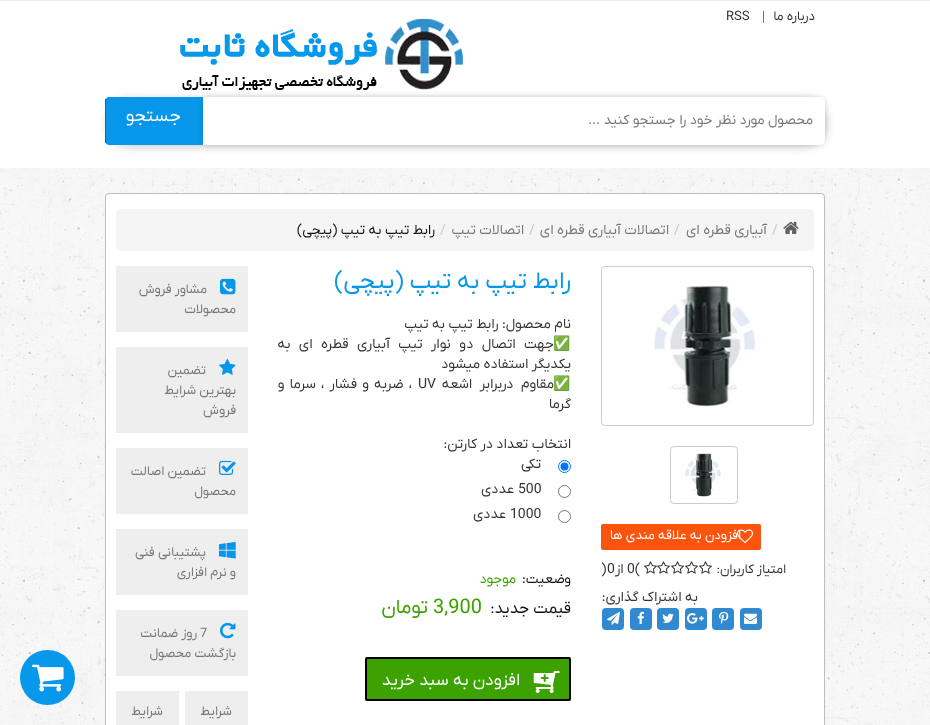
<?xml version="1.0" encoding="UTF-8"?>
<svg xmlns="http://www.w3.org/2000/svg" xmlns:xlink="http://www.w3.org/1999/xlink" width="930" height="725">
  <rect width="100%" height="100%" fill="#ffffff" />
  <image x="0" y="168" width="930" height="557" xlink:href="image1.png" />
  <rect width="930" height="1" fill="#eeeeee" />
  <rect x="763" y="11" width="1" height="12" fill="#0697ea" />
  <image x="180" y="19" width="283" height="71" xlink:href="image2.png" />
  <rect x="107" y="99" width="720" height="48" rx="24" fill="#cccccc" filter="blur(5px)" />
  <path d="M 109 97 h 94 v 48 h -94 c -2 0 -4 -2 -4 -4 v -40 c 0 -2 2 -4 4 -4 z" fill="#0697ea" />
  <rect x="203" y="97" width="622" height="48" rx="5" fill="#000000" fill-opacity="0.15" filter="blur(2.5px)" />
  <path d="M 203 97 h 617 c 3 0 5 2 5 5 v 38 c 0 3 -2 5 -5 5 h -617 z" fill="#ffffff" />
  <rect x="105" y="99" width="1" height="44" fill="#555555" />
  <rect x="105.5" y="193.5" width="719" height="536" rx="3.5" fill="#ffffff" stroke="#bdbdbd" />
  <rect x="116" y="209" width="698" height="42" rx="4" fill="#f5f5f5" />
  <image x="783" y="221" width="16" height="13" xlink:href="image3.png" />
  <rect x="601.5" y="266.5" width="212" height="159" rx="3.5" fill="none" stroke="#cccccc" />
  <image x="654" y="285" width="102" height="122" xlink:href="image4.png" />
  <rect x="670.5" y="446.5" width="67" height="57" rx="3.5" fill="none" stroke="#cccccc" />
  <image x="685" y="453" width="36" height="44" xlink:href="image5.png" />
  <rect x="601" y="524" width="160" height="26" rx="2" fill="#fc540d" />
  <image x="737" y="529" width="16" height="15" xlink:href="image6.png" />
  <image x="699" y="561" width="13" height="13" xlink:href="image7.png" />
  <image x="685" y="561" width="13" height="13" xlink:href="image7.png" />
  <image x="671" y="561" width="13" height="13" xlink:href="image7.png" />
  <image x="657" y="561" width="13" height="13" xlink:href="image7.png" />
  <image x="644" y="561" width="13" height="13" xlink:href="image7.png" />
  <image x="615" y="563" width="8" height="14" xlink:href="image8.png" />
  <rect x="740" y="608" width="22" height="22" rx="4" fill="#3189d0" />
  <image x="744" y="613" width="13" height="11" xlink:href="image9.png" />
  <rect x="712" y="608" width="22" height="22" rx="4" fill="#3189d0" />
  <image x="719" y="611" width="10" height="13" xlink:href="image10.png" />
  <rect x="685" y="608" width="22" height="22" rx="4" fill="#3189d0" />
  <image x="687" y="613" width="17" height="11" xlink:href="image11.png" />
  <rect x="657" y="608" width="22" height="22" rx="4" fill="#3189d0" />
  <image x="662" y="613" width="12" height="10" xlink:href="image12.png" />
  <rect x="630" y="608" width="22" height="22" rx="4" fill="#3189d0" />
  <image x="637" y="611" width="7" height="13" xlink:href="image13.png" />
  <rect x="602" y="608" width="22" height="22" rx="4" fill="#3189d0" />
  <image x="607" y="611" width="13" height="14" xlink:href="image14.png" />
  <circle cx="564.5" cy="466.5" r="6" fill="none" stroke="#0075ff" />
  <circle cx="564.5" cy="466.5" r="4" fill="#0075ff" />
  <circle cx="564.5" cy="491.5" r="6" fill="none" stroke="#767676" />
  <circle cx="564.5" cy="516.5" r="6" fill="none" stroke="#767676" />
  <rect x="366" y="658" width="204" height="42" rx="1" fill="#3ca200" stroke="#000000" stroke-width="2" />
  <image x="533" y="671" width="27" height="22" xlink:href="image15.png" />
  <rect x="116" y="266" width="132" height="66" fill="#eeeeee" />
  <image x="220" y="278" width="16" height="17" xlink:href="image16.png" />
  <rect x="116" y="347" width="132" height="86" fill="#eeeeee" />
  <image x="219" y="358" width="17" height="17" xlink:href="image17.png" />
  <rect x="116" y="448" width="132" height="66" fill="#eeeeee" />
  <image x="219" y="460" width="17" height="15" xlink:href="image18.png" />
  <rect x="116" y="529" width="132" height="66" fill="#eeeeee" />
  <image x="219" y="541" width="17" height="18" xlink:href="image19.png" />
  <rect x="116" y="610" width="132" height="66" fill="#eeeeee" />
  <image x="220" y="622" width="16" height="17" xlink:href="image20.png" />
  <rect x="185" y="691" width="63" height="34" fill="#eeeeee" />
  <rect x="116" y="691" width="63" height="34" fill="#eeeeee" />
  <circle cx="47.5" cy="677.5" r="27.5" fill="#0798eb" />
  <image x="32" y="664" width="32" height="28" xlink:href="image21.png" />
  <text x="815" y="20" style="font-family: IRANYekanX; font-size: 13px; direction: rtl; fill: #333333">درباره ما</text>
  <text x="726" y="20" style="font-family: IRANYekanX; font-size: 13px; fill: #333333">RSS</text>
  <text x="813" y="124" style="font-family: IRANYekanX; font-size: 14px; direction: rtl; fill: #777777">محصول مورد نظر خود را جستجو کنید ...</text>
  <text x="181" y="121" style="font-family: IRANYekanX; font-size: 18px; direction: rtl; fill: #ffffff">جستجو</text>
  <text x="772" y="234" style="font-family: IRANYekanX; font-size: 14px; fill: #cccccc">/</text>
  <text x="767" y="234" style="font-family: IRANYekanX; font-size: 14px; direction: rtl; fill: #777777">آبیاری قطره ای</text>
  <text x="674" y="234" style="font-family: IRANYekanX; font-size: 14px; fill: #cccccc">/</text>
  <text x="669" y="234" style="font-family: IRANYekanX; font-size: 14px; direction: rtl; fill: #777777">اتصالات آبیاری قطره ای</text>
  <text x="529" y="234" style="font-family: IRANYekanX; font-size: 14px; fill: #cccccc">/</text>
  <text x="524" y="234" style="font-family: IRANYekanX; font-size: 14px; direction: rtl; fill: #777777">اتصالات تیپ</text>
  <text x="440" y="234" style="font-family: IRANYekanX; font-size: 14px; fill: #cccccc">/</text>
  <text x="435" y="234" style="font-family: IRANYekanX; font-size: 14px; direction: rtl; fill: #111111">رابط تیپ به تیپ (پیچی)</text>
  <text x="741" y="539" style="font-family: IRANYekanX; font-size: 13px; direction: rtl; fill: #ffffff">افزودن به علاقه مندی ها</text>
  <text x="786" y="573" style="font-family: IRANYekanX; font-size: 13px; direction: rtl; fill: #333333">امتیاز کاربران:</text>
  <text x="635" y="573" style="font-family: IRANYekanX; font-size: 14px; fill: #333333">(</text>
  <text x="627" y="573" style="font-family: IRANYekanX; font-size: 14px; fill: #333333">0</text>
  <text x="607" y="573" style="font-family: IRANYekanX; font-size: 14px; fill: #333333">0</text>
  <text x="601" y="573" style="font-family: IRANYekanX; font-size: 14px; fill: #333333">)</text>
  <text x="698" y="601" style="font-family: IRANYekanX; font-size: 14px; direction: rtl; fill: #333333">به اشتراک گذاری:</text>
  <text x="571" y="288" style="font-family: IRANYekanX; font-size: 24px; direction: rtl; fill: #0697ea">رابط تیپ به تیپ (پیچی)</text>
  <text x="571" y="328" style="font-family: IRANYekanX; font-size: 14px; direction: rtl; fill: #333333">نام محصول: رابط تیپ به تیپ</text>
  <text x="571" y="348" style="font-family: Noto Color Emoji; font-size: 14px; direction: rtl; fill: #333333">✅</text>
  <text x="554" y="348" word-spacing="5" style="font-family: IRANYekanX; font-size: 14px; direction: rtl; fill: #333333">جهت اتصال دو نوار تیپ آبیاری قطره ای به</text>
  <text x="571" y="368" style="font-family: IRANYekanX; font-size: 14px; direction: rtl; fill: #333333">یکدیگر استفاده میشود</text>
  <text x="571" y="388" style="font-family: Noto Color Emoji; font-size: 14px; direction: rtl; fill: #333333">✅</text>
  <text x="554" y="388" word-spacing="4" style="font-family: IRANYekanX; font-size: 14px; direction: rtl; fill: #333333">مقاوم دربرابر اشعه</text>
  <text x="418" y="388" style="font-family: IRANYekanX; font-size: 14px; fill: #333333">UV</text>
  <text x="412" y="388" word-spacing="1.75" style="font-family: IRANYekanX; font-size: 14px; direction: rtl; fill: #333333">، ضربه و فشار ، سرما و</text>
  <text x="571" y="408" style="font-family: IRANYekanX; font-size: 14px; direction: rtl; fill: #333333">گرما</text>
  <text x="571" y="448" style="font-family: IRANYekanX; font-size: 14px; direction: rtl; fill: #333333">انتخاب تعداد در کارتن:</text>
  <text x="541" y="468" style="font-family: IRANYekanX; font-size: 14px; direction: rtl; fill: #333333">تکی</text>
  <text x="518" y="493" style="font-family: IRANYekanX; font-size: 14px; fill: #333333">500</text>
  <text x="514" y="493" style="font-family: IRANYekanX; font-size: 14px; direction: rtl; fill: #333333">عددی</text>
  <text x="510" y="518" style="font-family: IRANYekanX; font-size: 14px; fill: #333333">1000</text>
  <text x="506" y="518" style="font-family: IRANYekanX; font-size: 14px; direction: rtl; fill: #333333">عددی</text>
  <text x="571" y="583" style="font-family: IRANYekanX; font-size: 14px; direction: rtl; fill: #111111">وضعیت:</text>
  <text x="516" y="583" style="font-family: IRANYekanX; font-size: 14px; direction: rtl; fill: #3ca200">موجود</text>
  <text x="571" y="613" style="font-family: IRANYekanX; font-size: 16px; direction: rtl; fill: #111111">قیمت جدید:</text>
  <text x="433" y="613" style="font-family: IRANYekanX; font-size: 20px; fill: #3ca200">3,900</text>
  <text x="428" y="613" style="font-family: IRANYekanX; font-size: 20px; direction: rtl; fill: #3ca200">تومان</text>
  <text x="520" y="685" style="font-family: IRANYekanX; font-size: 17px; direction: rtl; fill: #ffffff">افزودن به سبد خرید</text>
  <text x="207" y="293" style="font-family: IRANYekanX; font-size: 13px; direction: rtl; fill: #777777">مشاور فروش</text>
  <text x="236" y="313" style="font-family: IRANYekanX; font-size: 13px; direction: rtl; fill: #777777">محصولات</text>
  <text x="206" y="374" style="font-family: IRANYekanX; font-size: 13px; direction: rtl; fill: #777777">تضمین</text>
  <text x="236" y="394" style="font-family: IRANYekanX; font-size: 13px; direction: rtl; fill: #777777">بهترین شرایط</text>
  <text x="236" y="414" style="font-family: IRANYekanX; font-size: 13px; direction: rtl; fill: #777777">فروش</text>
  <text x="206" y="475" style="font-family: IRANYekanX; font-size: 13px; direction: rtl; fill: #777777">تضمین اصالت</text>
  <text x="236" y="495" style="font-family: IRANYekanX; font-size: 13px; direction: rtl; fill: #777777">محصول</text>
  <text x="206" y="556" style="font-family: IRANYekanX; font-size: 13px; direction: rtl; fill: #777777">پشتیبانی فنی</text>
  <text x="236" y="576" style="font-family: IRANYekanX; font-size: 13px; direction: rtl; fill: #777777">و نرم افزاری</text>
  <text x="200" y="637" style="font-family: IRANYekanX; font-size: 13px; fill: #777777">7</text>
  <text x="197" y="637" style="font-family: IRANYekanX; font-size: 13px; direction: rtl; fill: #777777">روز ضمانت</text>
  <text x="236" y="657" style="font-family: IRANYekanX; font-size: 13px; direction: rtl; fill: #777777">بازگشت محصول</text>
  <text x="232" y="715" style="font-family: IRANYekanX; font-size: 13px; direction: rtl; fill: #777777">شرایط</text>
  <text x="163" y="715" style="font-family: IRANYekanX; font-size: 13px; direction: rtl; fill: #777777">شرایط</text>
</svg>
